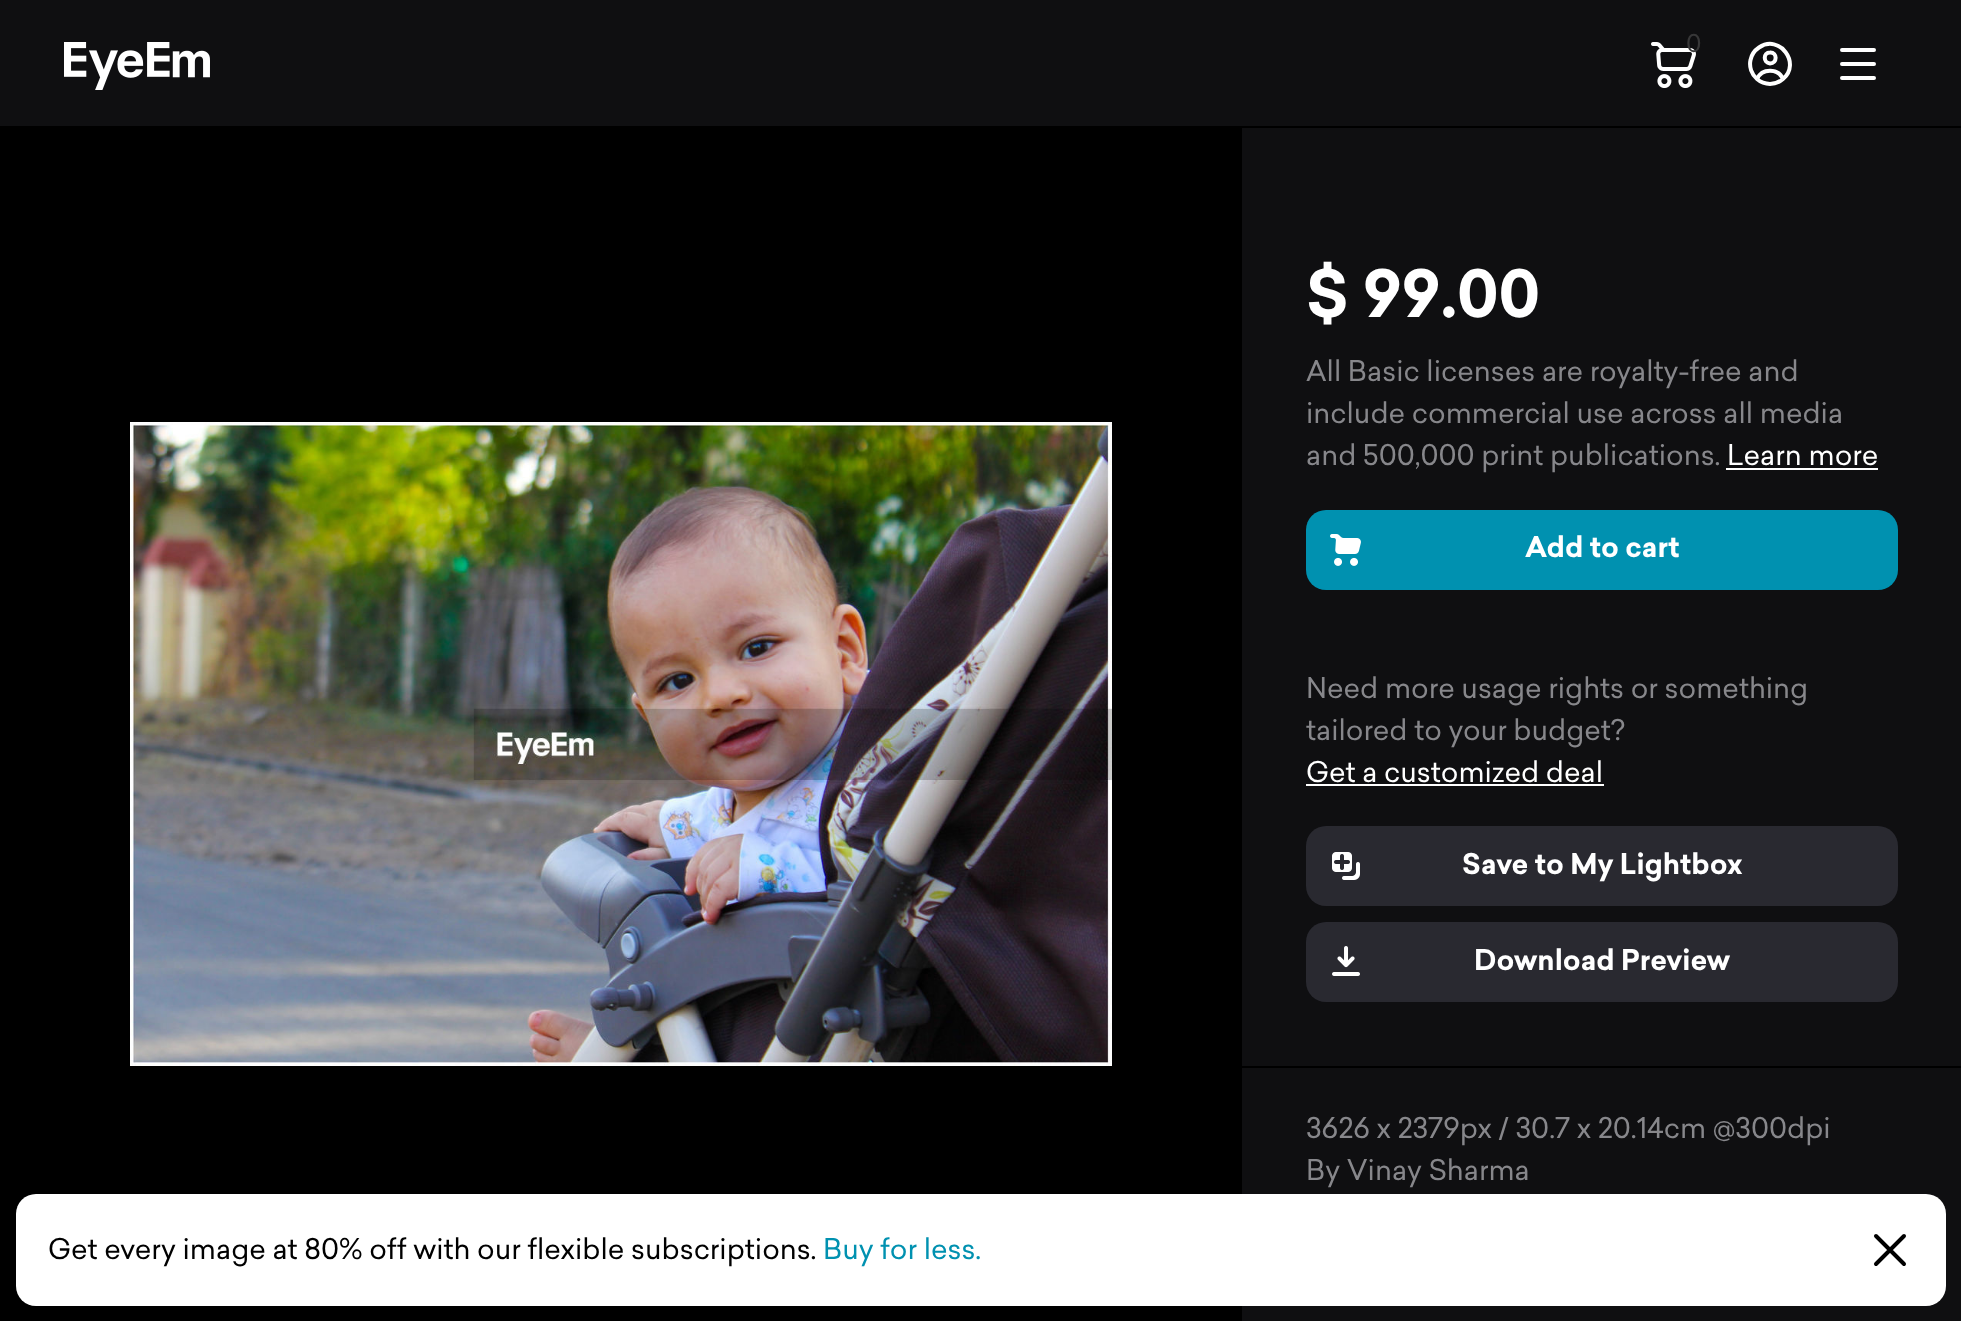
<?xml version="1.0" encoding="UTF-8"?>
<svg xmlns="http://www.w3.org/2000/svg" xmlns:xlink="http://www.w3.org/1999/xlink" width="1961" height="1321">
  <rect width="100%" height="100%" fill="#000000" />
  <rect width="1961" height="126" fill="#0f0f11" />
  <image x="64" y="42" width="146" height="48" xlink:href="image1.png" />
  <image x="1651" y="42" width="45" height="46" xlink:href="image2.png" />
  <path d="M 1757 79 c -5.5 -4.5 -8 -12 -6.5 -19 c 1 -5 4 -9.5 8.5 -12.5 c 20.5 -14 42.5 16 24 31.5 m -26 0 c 7.5 6.5 18.5 6.5 26 0 m -26 0 c 5 -11 21 -11 26 0 m -13 -15.5 c 7.5 0 7.5 -11.5 0 -11 c -7 0 -7 10.5 0 11 z" fill="none" stroke="#ffffff" stroke-width="4" />
  <path d="M 1842 50 h 32 m -32 14 h 32 m -32 14 h 32" fill="none" stroke="#ffffff" stroke-width="4" stroke-linecap="round" stroke-linejoin="round" />
  <image x="130" y="422" width="982" height="644" xlink:href="image3.png" />
  <rect x="1242" y="128" width="719" height="938" fill="#0f0f11" />
  <rect x="1726" y="468" width="152" height="2" fill="#ffffff" />
  <rect x="1306" y="510" width="592" height="80" rx="20" fill="#0091b0" />
  <image x="1330" y="534" width="31" height="32" xlink:href="image4.png" />
  <rect x="1306" y="784" width="298" height="2" fill="#ffffff" />
  <rect x="1306" y="826" width="592" height="80" rx="20" fill="#292930" />
  <image x="1332" y="852" width="28" height="28" xlink:href="image5.png" />
  <rect x="1306" y="922" width="592" height="80" rx="20" fill="#292930" />
  <image x="1332" y="946" width="28" height="30" xlink:href="image6.png" />
  <rect x="1242" y="1068" width="719" height="253" fill="#0f0f11" />
  <rect x="16" y="1194" width="1930" height="112" rx="20" fill="#ffffff" />
  <path d="M 1904 1236 l -28 28 m 0 -28 l 28 28" fill="none" stroke="#000000" stroke-width="4" stroke-linecap="round" stroke-linejoin="round" />
  <text x="1686" y="52" style="font-family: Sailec; font-size: 24px; fill: #373738">0</text>
  <text x="1306" y="317" style="font-family: Sailec; font-size: 64px; font-weight: bold; fill: #ffffff">$ 99.00</text>
  <text x="1306" y="381" style="font-family: Sailec; font-size: 28px; fill: #87878b">All Basic licenses are royalty-free and</text>
  <text x="1306" y="423" style="font-family: Sailec; font-size: 28px; fill: #87878b">include commercial use across all media</text>
  <text x="1306" y="465" style="font-family: Sailec; font-size: 28px; fill: #87878b">and 500,000 print publications.</text>
  <text x="1727" y="465" style="font-family: Sailec; font-size: 28px; fill: #ffffff">Learn more</text>
  <text x="1525" y="557" style="font-family: Sailec; font-size: 28px; font-weight: bold; fill: #ffffff">Add to cart</text>
  <text x="1306" y="698" style="font-family: Sailec; font-size: 28px; fill: #87878b">Need more usage rights or something</text>
  <text x="1306" y="740" style="font-family: Sailec; font-size: 28px; fill: #87878b">tailored to your budget?</text>
  <text x="1306" y="782" style="font-family: Sailec; font-size: 28px; fill: #ffffff">Get a customized deal</text>
  <text x="1462" y="874" style="font-family: Sailec; font-size: 28px; font-weight: bold; fill: #ffffff">Save to My Lightbox</text>
  <text x="1474" y="970" style="font-family: Sailec; font-size: 28px; font-weight: bold; fill: #ffffff">Download Preview</text>
  <text x="1306" y="1138" style="font-family: Sailec; font-size: 28px; fill: #87878b">3626 x 2379px / 30.7 x 20.14cm @300dpi</text>
  <text x="1306" y="1180" style="font-family: Sailec; font-size: 28px; fill: #87878b">By Vinay Sharma</text>
  <text x="48" y="1259" style="font-family: Sailec; font-size: 28px; fill: #000000">Get every image at 80% off with our flexible subscriptions.</text>
  <text x="823" y="1259" style="font-family: Sailec; font-size: 28px; fill: #0091b0">Buy for less.</text>
</svg>
